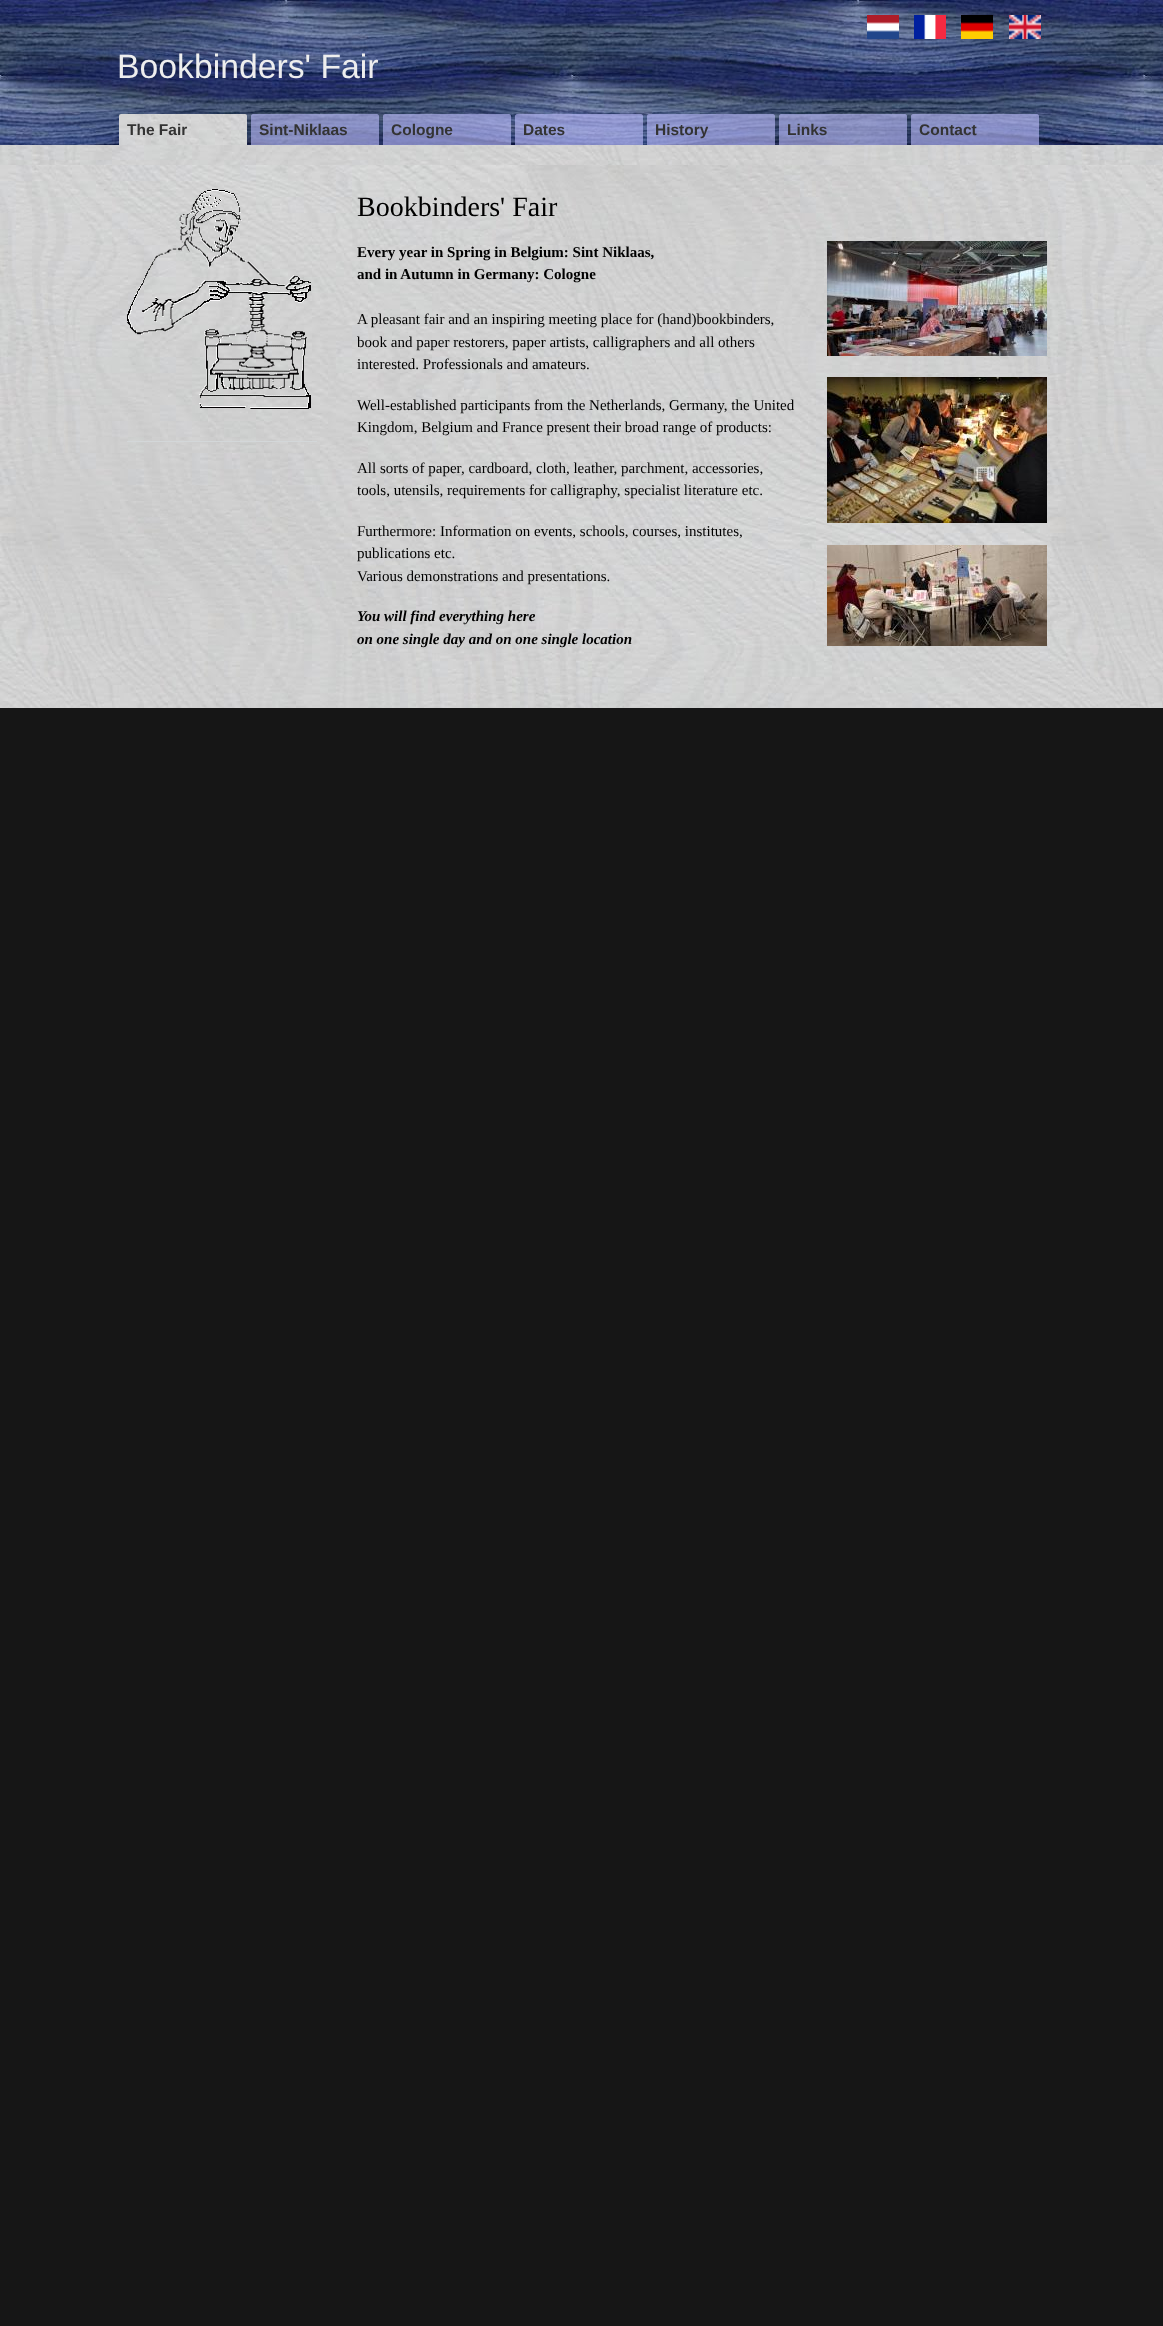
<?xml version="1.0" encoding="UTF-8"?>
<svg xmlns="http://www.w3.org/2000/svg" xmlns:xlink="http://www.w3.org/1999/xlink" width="1163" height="2326">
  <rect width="100%" height="100%" fill="#161616" />
  <image x="0" y="145" width="1163" height="20" xlink:href="image1.png" />
  <image x="0" y="0" width="1163" height="145" xlink:href="image2.png" />
  <image x="867" y="15" width="32" height="24" xlink:href="image3.png" />
  <image x="914" y="15" width="32" height="24" xlink:href="image4.png" />
  <image x="961" y="15" width="32" height="24" xlink:href="image5.png" />
  <image x="1009" y="15" width="32" height="24" xlink:href="image6.png" />
  <image x="119" y="114" width="128" height="31" xlink:href="image7.png" />
  <path d="M 253 114 h 124 c 1 0 2 1 2 2 v 29 h -128 v -29 c 0 -1 1 -2 2 -2 z" fill="#c0c0ff" fill-opacity="0.6" />
  <path d="M 385 114 h 124 c 1 0 2 1 2 2 v 29 h -128 v -29 c 0 -1 1 -2 2 -2 z" fill="#c0c0ff" fill-opacity="0.6" />
  <path d="M 517 114 h 124 c 1 0 2 1 2 2 v 29 h -128 v -29 c 0 -1 1 -2 2 -2 z" fill="#c0c0ff" fill-opacity="0.6" />
  <path d="M 649 114 h 124 c 1 0 2 1 2 2 v 29 h -128 v -29 c 0 -1 1 -2 2 -2 z" fill="#c0c0ff" fill-opacity="0.6" />
  <path d="M 781 114 h 124 c 1 0 2 1 2 2 v 29 h -128 v -29 c 0 -1 1 -2 2 -2 z" fill="#c0c0ff" fill-opacity="0.6" />
  <path d="M 913 114 h 124 c 1 0 2 1 2 2 v 29 h -128 v -29 c 0 -1 1 -2 2 -2 z" fill="#c0c0ff" fill-opacity="0.6" />
  <image x="0" y="165" width="1163" height="543" xlink:href="image8.png" />
  <rect x="127" y="441" width="190" height="1" fill="#d3d7d9" />
  <image x="127" y="189" width="184" height="220" xlink:href="image9.png" />
  <image x="827" y="241" width="220" height="115" xlink:href="image10.png" />
  <image x="827" y="377" width="220" height="146" xlink:href="image11.png" />
  <image x="827" y="545" width="220" height="101" xlink:href="image12.png" />
  <text x="117" y="78" style="font-family: Liberation Sans; font-size: 33.75px; fill: #eeeeee">Bookbinders' Fair</text>
  <text x="127" y="135" style="font-family: Liberation Sans; font-size: 15.5px; font-weight: bold; fill: #333333">The Fair</text>
  <text x="259" y="135" style="font-family: Liberation Sans; font-size: 15.5px; font-weight: bold; fill: #333333">Sint-Niklaas</text>
  <text x="391" y="135" style="font-family: Liberation Sans; font-size: 15.5px; font-weight: bold; fill: #333333">Cologne</text>
  <text x="523" y="135" style="font-family: Liberation Sans; font-size: 15.5px; font-weight: bold; fill: #333333">Dates</text>
  <text x="655" y="135" style="font-family: Liberation Sans; font-size: 15.5px; font-weight: bold; fill: #333333">History</text>
  <text x="787" y="135" style="font-family: Liberation Sans; font-size: 15.5px; font-weight: bold; fill: #333333">Links</text>
  <text x="919" y="135" style="font-family: Liberation Sans; font-size: 15.5px; font-weight: bold; fill: #333333">Contact</text>
  <text x="357" y="216" style="font-family: Liberation Serif; font-size: 28px; fill: #000000">Bookbinders' Fair</text>
  <text x="357" y="257" style="font-family: Liberation Serif; font-size: 15px; font-weight: bold; fill: #000000">Every year in Spring in Belgium: Sint Niklaas,</text>
  <text x="357" y="279" style="font-family: Liberation Serif; font-size: 15px; font-weight: bold; fill: #000000">and in Autumn in Germany: Cologne</text>
  <text x="357" y="324" style="font-family: Liberation Serif; font-size: 15px; fill: #000000">A pleasant fair and an inspiring meeting place for (hand)bookbinders,</text>
  <text x="357" y="347" style="font-family: Liberation Serif; font-size: 15px; fill: #000000">book and paper restorers, paper artists, calligraphers and all others</text>
  <text x="357" y="369" style="font-family: Liberation Serif; font-size: 15px; fill: #000000">interested. Professionals and amateurs.</text>
  <text x="357" y="410" style="font-family: Liberation Serif; font-size: 15px; fill: #000000">Well-established participants from the Netherlands, Germany, the United</text>
  <text x="357" y="432" style="font-family: Liberation Serif; font-size: 15px; fill: #000000">Kingdom, Belgium and France present their broad range of products:</text>
  <text x="357" y="473" style="font-family: Liberation Serif; font-size: 15px; fill: #000000">All sorts of paper, cardboard, cloth, leather, parchment, accessories,</text>
  <text x="357" y="495" style="font-family: Liberation Serif; font-size: 15px; fill: #000000">tools, utensils, requirements for calligraphy, specialist literature etc.</text>
  <text x="357" y="536" style="font-family: Liberation Serif; font-size: 15px; fill: #000000">Furthermore: Information on events, schools, courses, institutes,</text>
  <text x="357" y="558" style="font-family: Liberation Serif; font-size: 15px; fill: #000000">publications etc.</text>
  <text x="357" y="581" style="font-family: Liberation Serif; font-size: 15px; fill: #000000">Various demonstrations and presentations.</text>
  <text x="357" y="621" style="font-family: Liberation Serif; font-size: 15px; font-weight: bold; font-style: italic; fill: #000000">You will find everything here</text>
  <text x="357" y="644" style="font-family: Liberation Serif; font-size: 15px; font-weight: bold; font-style: italic; fill: #000000">on one single day and on one single location</text>
</svg>
